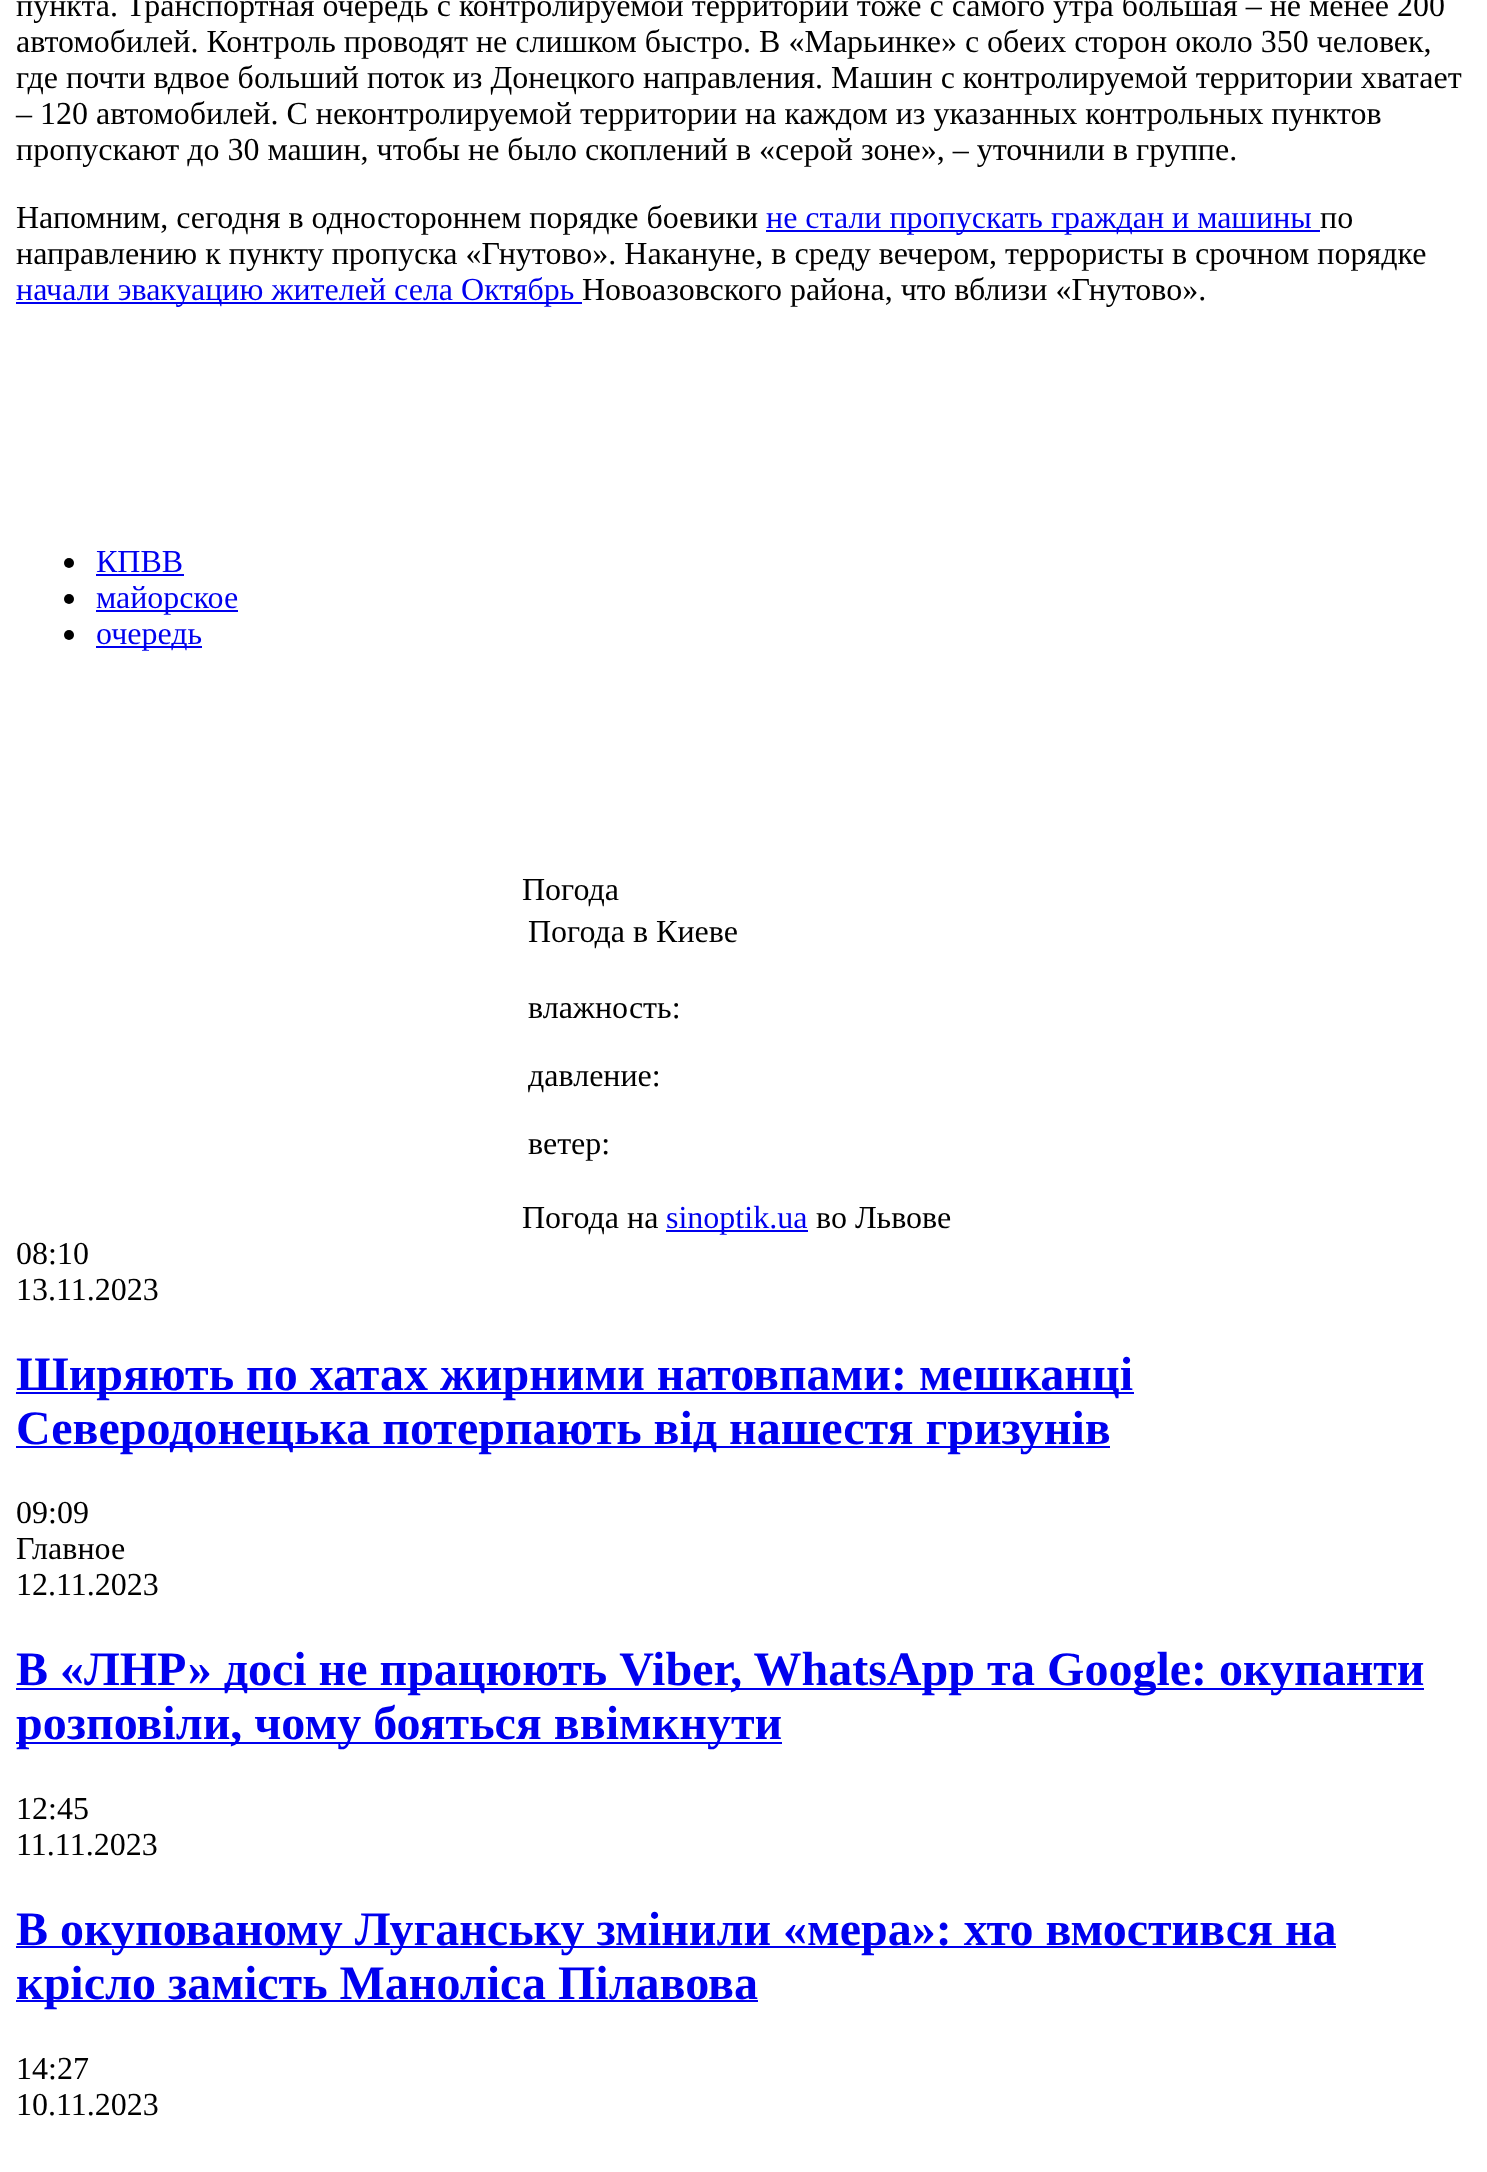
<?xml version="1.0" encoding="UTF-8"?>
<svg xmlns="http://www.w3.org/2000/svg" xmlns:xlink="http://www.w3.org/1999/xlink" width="1487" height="2172">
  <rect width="100%" height="100%" fill="#ffffff" />
  <rect x="766" y="230" width="554" height="2" fill="#0000ee" />
  <rect x="16" y="302" width="566" height="2" fill="#0000ee" />
  <circle cx="69" cy="563" r="5" fill="#000000" />
  <rect x="96" y="574" width="88" height="2" fill="#0000ee" />
  <circle cx="69" cy="599" r="5" fill="#000000" />
  <rect x="96" y="610" width="142" height="2" fill="#0000ee" />
  <circle cx="69" cy="635" r="5" fill="#000000" />
  <rect x="96" y="646" width="106" height="2" fill="#0000ee" />
  <rect x="666" y="1230" width="142" height="2" fill="#0000ee" />
  <rect x="16" y="1392" width="1118" height="2" fill="#0000ee" />
  <rect x="16" y="1446" width="1094" height="2" fill="#0000ee" />
  <rect x="16" y="1688" width="1408" height="2" fill="#0000ee" />
  <rect x="16" y="1742" width="766" height="2" fill="#0000ee" />
  <rect x="16" y="1946" width="1320" height="2" fill="#0000ee" />
  <rect x="16" y="2000" width="742" height="2" fill="#0000ee" />
  <text x="16" y="16" style="font-family: Liberation Serif; font-size: 32px; fill: #000000">пункта. Транспортная очередь с контролируемой территории тоже с самого утра большая – не менее 200</text>
  <text x="16" y="52" style="font-family: Liberation Serif; font-size: 32px; fill: #000000">автомобилей. Контроль проводят не слишком быстро. В «Марьинке» с обеих сторон около 350 человек,</text>
  <text x="16" y="88" style="font-family: Liberation Serif; font-size: 32px; fill: #000000">где почти вдвое больший поток из Донецкого направления. Машин с контролируемой территории хватает</text>
  <text x="16" y="124" style="font-family: Liberation Serif; font-size: 32px; fill: #000000">– 120 автомобилей. С неконтролируемой территории на каждом из указанных контрольных пунктов</text>
  <text x="16" y="160" style="font-family: Liberation Serif; font-size: 32px; fill: #000000">пропускают до 30 машин, чтобы не было скоплений в «серой зоне», – уточнили в группе.</text>
  <text x="16" y="228" style="font-family: Liberation Serif; font-size: 32px; fill: #000000">Напомним, сегодня в одностороннем порядке боевики</text>
  <text x="766" y="228" style="font-family: Liberation Serif; font-size: 32px; fill: #0000ee">не стали пропускать граждан и машины</text>
  <text x="1320" y="228" style="font-family: Liberation Serif; font-size: 32px; fill: #000000">по</text>
  <text x="16" y="264" style="font-family: Liberation Serif; font-size: 32px; fill: #000000">направлению к пункту пропуска «Гнутово». Накануне, в среду вечером, террористы в срочном порядке</text>
  <text x="16" y="300" style="font-family: Liberation Serif; font-size: 32px; fill: #0000ee">начали эвакуацию жителей села Октябрь</text>
  <text x="582" y="300" style="font-family: Liberation Serif; font-size: 32px; fill: #000000">Новоазовского района, что вблизи «Гнутово».</text>
  <text x="96" y="572" style="font-family: Liberation Serif; font-size: 32px; fill: #0000ee">КПВВ</text>
  <text x="96" y="608" style="font-family: Liberation Serif; font-size: 32px; fill: #0000ee">майорское</text>
  <text x="96" y="644" style="font-family: Liberation Serif; font-size: 32px; fill: #0000ee">очередь</text>
  <text x="522" y="900" style="font-family: Liberation Serif; font-size: 32px; fill: #000000">Погода</text>
  <text x="528" y="942" style="font-family: Liberation Serif; font-size: 32px; fill: #000000">Погода в Киеве</text>
  <text x="528" y="1018" style="font-family: Liberation Serif; font-size: 32px; fill: #000000">влажность:</text>
  <text x="528" y="1086" style="font-family: Liberation Serif; font-size: 32px; fill: #000000">давление:</text>
  <text x="528" y="1154" style="font-family: Liberation Serif; font-size: 32px; fill: #000000">ветер:</text>
  <text x="522" y="1228" style="font-family: Liberation Serif; font-size: 32px; fill: #000000">Погода на</text>
  <text x="666" y="1228" style="font-family: Liberation Serif; font-size: 32px; fill: #0000ee">sinoptik.ua</text>
  <text x="816" y="1228" style="font-family: Liberation Serif; font-size: 32px; fill: #000000">во Львове</text>
  <text x="16" y="1264" style="font-family: Liberation Serif; font-size: 32px; fill: #000000">08:10</text>
  <text x="16" y="1300" style="font-family: Liberation Serif; font-size: 32px; fill: #000000">13.11.2023</text>
  <text x="16" y="1390" style="font-family: Liberation Serif; font-size: 48px; font-weight: bold; fill: #0000ee">Ширяють по хатах жирними натовпами: мешканці</text>
  <text x="16" y="1444" style="font-family: Liberation Serif; font-size: 48px; font-weight: bold; fill: #0000ee">Северодонецька потерпають від нашестя гризунів</text>
  <text x="16" y="1523" style="font-family: Liberation Serif; font-size: 32px; fill: #000000">09:09</text>
  <text x="16" y="1559" style="font-family: Liberation Serif; font-size: 32px; fill: #000000">Главное</text>
  <text x="16" y="1595" style="font-family: Liberation Serif; font-size: 32px; fill: #000000">12.11.2023</text>
  <text x="16" y="1685" style="font-family: Liberation Serif; font-size: 48px; font-weight: bold; fill: #0000ee">В «ЛНР» досі не працюють Viber, WhatsApp та Google: окупанти</text>
  <text x="16" y="1739" style="font-family: Liberation Serif; font-size: 48px; font-weight: bold; fill: #0000ee">розповіли, чому бояться ввімкнути</text>
  <text x="16" y="1819" style="font-family: Liberation Serif; font-size: 32px; fill: #000000">12:45</text>
  <text x="16" y="1855" style="font-family: Liberation Serif; font-size: 32px; fill: #000000">11.11.2023</text>
  <text x="16" y="1945" style="font-family: Liberation Serif; font-size: 48px; font-weight: bold; fill: #0000ee">В окупованому Луганську змінили «мера»: хто вмостився на</text>
  <text x="16" y="1999" style="font-family: Liberation Serif; font-size: 48px; font-weight: bold; fill: #0000ee">крісло замість Маноліса Пілавова</text>
  <text x="16" y="2079" style="font-family: Liberation Serif; font-size: 32px; fill: #000000">14:27</text>
  <text x="16" y="2115" style="font-family: Liberation Serif; font-size: 32px; fill: #000000">10.11.2023</text>
</svg>
